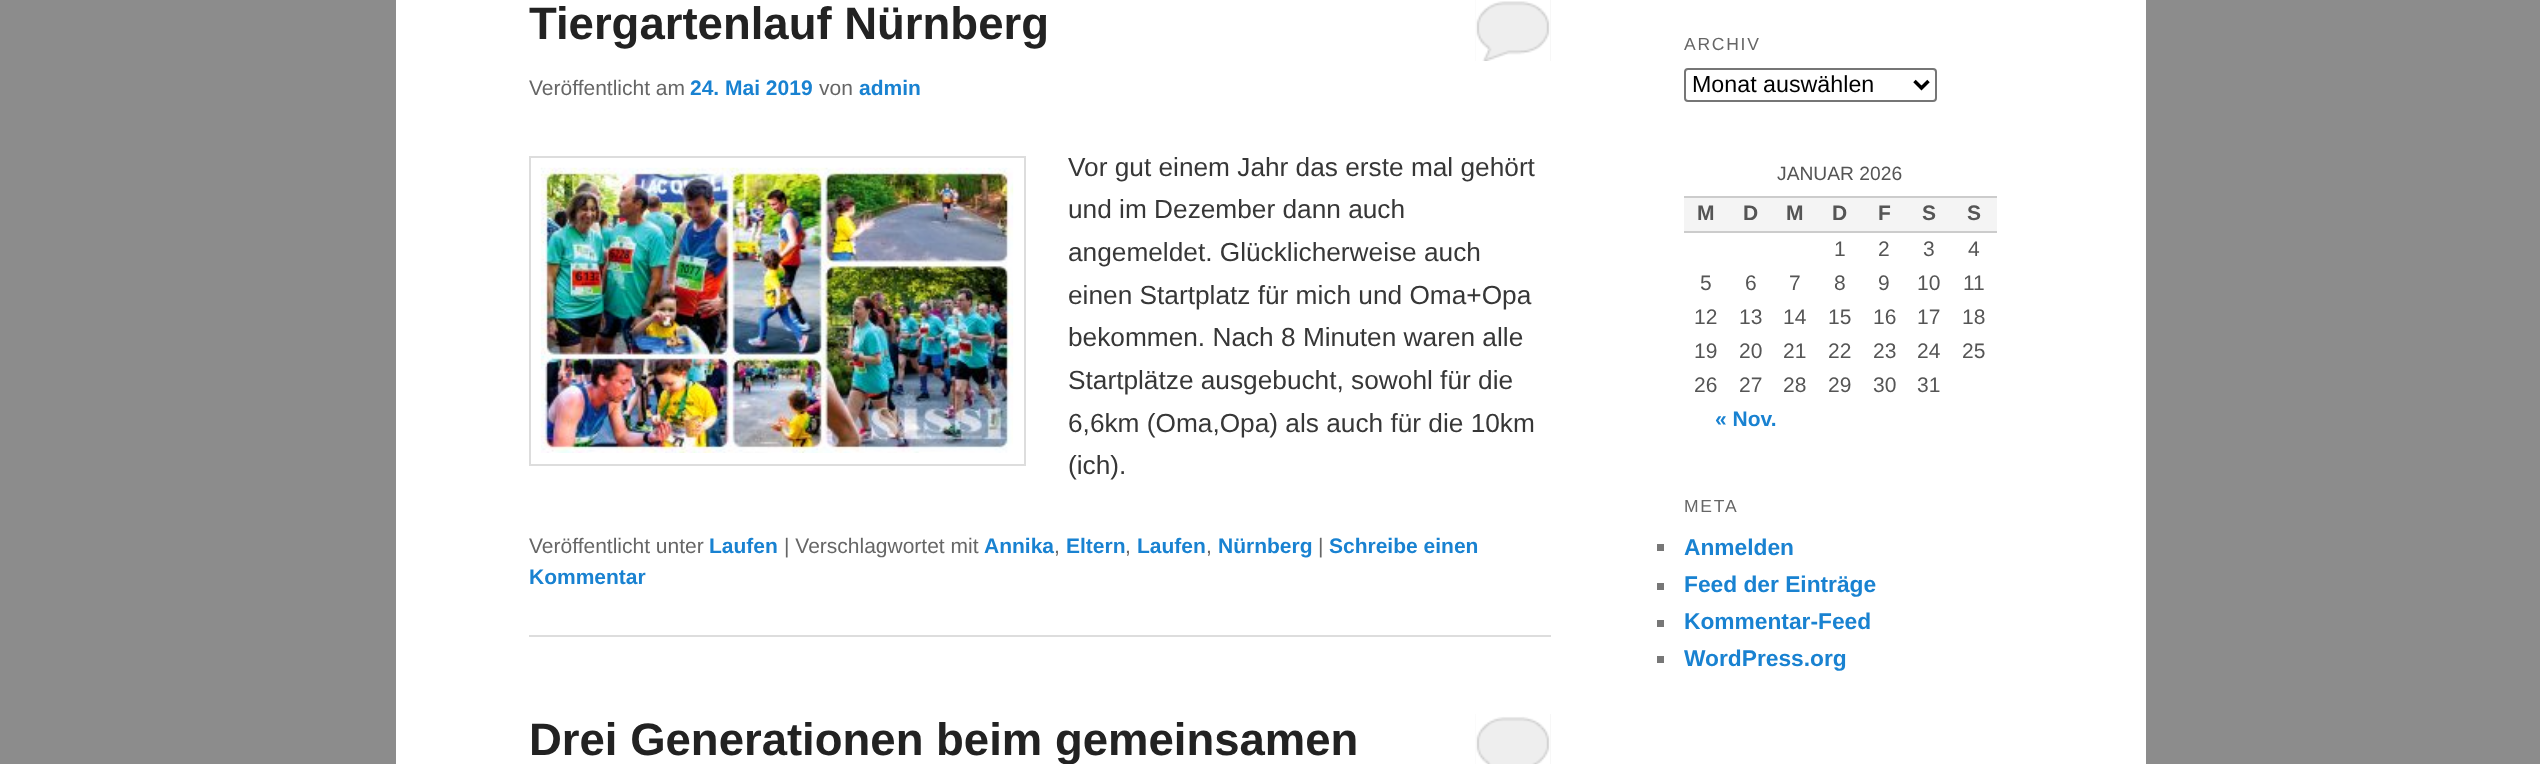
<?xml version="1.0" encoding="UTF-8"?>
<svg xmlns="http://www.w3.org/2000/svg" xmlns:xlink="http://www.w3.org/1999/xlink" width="2540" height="764">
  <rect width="100%" height="100%" fill="#8c8c8c" />
  <rect x="396" width="1750" height="764" fill="#ffffff" />
  <rect x="529" y="635" width="1022" height="2" fill="#dddddd" />
  <rect x="1475" width="76" height="61" fill="#eeeeee" />
  <image x="1475" y="0" width="76" height="61" xlink:href="image1.png" />
  <rect x="530" y="157" width="495" height="308" fill="none" stroke="#dddddd" stroke-width="2" />
  <image x="540" y="167" width="474" height="286" xlink:href="image2.png" />
  <rect x="1475" y="714" width="76" height="50" fill="#eeeeee" />
  <image x="1475" y="714" width="76" height="50" xlink:href="image3.png" />
  <rect x="1685" y="69" width="251" height="32" rx="3" fill="none" stroke="#767676" stroke-width="2" />
  <path d="M 1914.5 81 l 7 7 l 7 -7" fill="none" stroke="#000000" stroke-width="3.5" />
  <rect x="1684" y="198" width="313" height="33" fill="#f4f4f4" />
  <rect x="1684" y="196" width="313" height="2" fill="#cccccc" />
  <rect x="1684" y="231" width="313" height="2" fill="#cccccc" />
  <rect x="1657" y="544" width="7" height="7" fill="#777777" />
  <rect x="1657" y="583" width="7" height="7" fill="#777777" />
  <rect x="1657" y="620" width="7" height="7" fill="#777777" />
  <rect x="1657" y="656" width="7" height="7" fill="#777777" />
  <text x="529" y="39" style="font-family: Liberation Sans; font-size: 45.5px; font-weight: bold; fill: #222222">Tiergartenlauf Nürnberg</text>
  <text x="529" y="95" style="font-family: Liberation Sans; font-size: 21px; fill: #666666">Veröffentlicht am</text>
  <text x="690" y="95" style="font-family: Liberation Sans; font-size: 21px; font-weight: bold; fill: #1982d1">24. Mai 2019</text>
  <text x="819" y="95" style="font-family: Liberation Sans; font-size: 21px; fill: #666666">von</text>
  <text x="859" y="95" style="font-family: Liberation Sans; font-size: 21px; font-weight: bold; fill: #1982d1">admin</text>
  <text x="1068" y="176" style="font-family: Liberation Sans; font-size: 26.25px; fill: #373737">Vor gut einem Jahr das erste mal gehört</text>
  <text x="1068" y="218" style="font-family: Liberation Sans; font-size: 26.25px; fill: #373737">und im Dezember dann auch</text>
  <text x="1068" y="261" style="font-family: Liberation Sans; font-size: 26.25px; fill: #373737">angemeldet. Glücklicherweise auch</text>
  <text x="1068" y="304" style="font-family: Liberation Sans; font-size: 26.25px; fill: #373737">einen Startplatz für mich und Oma+Opa</text>
  <text x="1068" y="346" style="font-family: Liberation Sans; font-size: 26.25px; fill: #373737">bekommen. Nach 8 Minuten waren alle</text>
  <text x="1068" y="389" style="font-family: Liberation Sans; font-size: 26.25px; fill: #373737">Startplätze ausgebucht, sowohl für die</text>
  <text x="1068" y="432" style="font-family: Liberation Sans; font-size: 26.25px; fill: #373737">6,6km (Oma,Opa) als auch für die 10km</text>
  <text x="1068" y="474" style="font-family: Liberation Sans; font-size: 26.25px; fill: #373737">(ich).</text>
  <text x="529" y="553" style="font-family: Liberation Sans; font-size: 21px; fill: #666666">Veröffentlicht unter</text>
  <text x="709" y="553" style="font-family: Liberation Sans; font-size: 21px; font-weight: bold; fill: #1982d1">Laufen</text>
  <text x="784" y="553" style="font-family: Liberation Sans; font-size: 21px; fill: #666666">| Verschlagwortet mit</text>
  <text x="984" y="553" style="font-family: Liberation Sans; font-size: 21px; font-weight: bold; fill: #1982d1">Annika</text>
  <text x="1054" y="553" style="font-family: Liberation Sans; font-size: 21px; fill: #666666">,</text>
  <text x="1066" y="553" style="font-family: Liberation Sans; font-size: 21px; font-weight: bold; fill: #1982d1">Eltern</text>
  <text x="1125" y="553" style="font-family: Liberation Sans; font-size: 21px; fill: #666666">,</text>
  <text x="1137" y="553" style="font-family: Liberation Sans; font-size: 21px; font-weight: bold; fill: #1982d1">Laufen</text>
  <text x="1206" y="553" style="font-family: Liberation Sans; font-size: 21px; fill: #666666">,</text>
  <text x="1218" y="553" style="font-family: Liberation Sans; font-size: 21px; font-weight: bold; fill: #1982d1">Nürnberg</text>
  <text x="1318" y="553" style="font-family: Liberation Sans; font-size: 21px; fill: #666666">|</text>
  <text x="1329" y="553" style="font-family: Liberation Sans; font-size: 21px; font-weight: bold; fill: #1982d1">Schreibe einen</text>
  <text x="529" y="584" style="font-family: Liberation Sans; font-size: 21px; font-weight: bold; fill: #1982d1">Kommentar</text>
  <text x="529" y="755" style="font-family: Liberation Sans; font-size: 45.5px; font-weight: bold; fill: #222222">Drei Generationen beim gemeinsamen</text>
  <text x="1684" y="50" style="font-family: Liberation Sans; font-size: 17.5px; letter-spacing: 1.75px; fill: #666666">ARCHIV</text>
  <text x="1692" y="92" style="font-family: Liberation Sans; font-size: 23.25px; fill: #000000">Monat auswählen</text>
  <text x="1777" y="180" style="font-family: Liberation Sans; font-size: 19.25px; fill: #555555">JANUAR 2026</text>
  <text x="1697" y="220" style="font-family: Liberation Sans; font-size: 21px; font-weight: bold; fill: #555555">M</text>
  <text x="1743" y="220" style="font-family: Liberation Sans; font-size: 21px; font-weight: bold; fill: #555555">D</text>
  <text x="1786" y="220" style="font-family: Liberation Sans; font-size: 21px; font-weight: bold; fill: #555555">M</text>
  <text x="1832" y="220" style="font-family: Liberation Sans; font-size: 21px; font-weight: bold; fill: #555555">D</text>
  <text x="1878" y="220" style="font-family: Liberation Sans; font-size: 21px; font-weight: bold; fill: #555555">F</text>
  <text x="1922" y="220" style="font-family: Liberation Sans; font-size: 21px; font-weight: bold; fill: #555555">S</text>
  <text x="1967" y="220" style="font-family: Liberation Sans; font-size: 21px; font-weight: bold; fill: #555555">S</text>
  <text x="1834" y="256" style="font-family: Liberation Sans; font-size: 21px; fill: #555555">1</text>
  <text x="1878" y="256" style="font-family: Liberation Sans; font-size: 21px; fill: #555555">2</text>
  <text x="1923" y="256" style="font-family: Liberation Sans; font-size: 21px; fill: #555555">3</text>
  <text x="1968" y="256" style="font-family: Liberation Sans; font-size: 21px; fill: #555555">4</text>
  <text x="1700" y="290" style="font-family: Liberation Sans; font-size: 21px; fill: #555555">5</text>
  <text x="1745" y="290" style="font-family: Liberation Sans; font-size: 21px; fill: #555555">6</text>
  <text x="1789" y="290" style="font-family: Liberation Sans; font-size: 21px; fill: #555555">7</text>
  <text x="1834" y="290" style="font-family: Liberation Sans; font-size: 21px; fill: #555555">8</text>
  <text x="1878" y="290" style="font-family: Liberation Sans; font-size: 21px; fill: #555555">9</text>
  <text x="1917" y="290" style="font-family: Liberation Sans; font-size: 21px; fill: #555555">10</text>
  <text x="1963" y="290" style="font-family: Liberation Sans; font-size: 21px; fill: #555555">11</text>
  <text x="1694" y="324" style="font-family: Liberation Sans; font-size: 21px; fill: #555555">12</text>
  <text x="1739" y="324" style="font-family: Liberation Sans; font-size: 21px; fill: #555555">13</text>
  <text x="1783" y="324" style="font-family: Liberation Sans; font-size: 21px; fill: #555555">14</text>
  <text x="1828" y="324" style="font-family: Liberation Sans; font-size: 21px; fill: #555555">15</text>
  <text x="1873" y="324" style="font-family: Liberation Sans; font-size: 21px; fill: #555555">16</text>
  <text x="1917" y="324" style="font-family: Liberation Sans; font-size: 21px; fill: #555555">17</text>
  <text x="1962" y="324" style="font-family: Liberation Sans; font-size: 21px; fill: #555555">18</text>
  <text x="1694" y="358" style="font-family: Liberation Sans; font-size: 21px; fill: #555555">19</text>
  <text x="1739" y="358" style="font-family: Liberation Sans; font-size: 21px; fill: #555555">20</text>
  <text x="1783" y="358" style="font-family: Liberation Sans; font-size: 21px; fill: #555555">21</text>
  <text x="1828" y="358" style="font-family: Liberation Sans; font-size: 21px; fill: #555555">22</text>
  <text x="1873" y="358" style="font-family: Liberation Sans; font-size: 21px; fill: #555555">23</text>
  <text x="1917" y="358" style="font-family: Liberation Sans; font-size: 21px; fill: #555555">24</text>
  <text x="1962" y="358" style="font-family: Liberation Sans; font-size: 21px; fill: #555555">25</text>
  <text x="1694" y="392" style="font-family: Liberation Sans; font-size: 21px; fill: #555555">26</text>
  <text x="1739" y="392" style="font-family: Liberation Sans; font-size: 21px; fill: #555555">27</text>
  <text x="1783" y="392" style="font-family: Liberation Sans; font-size: 21px; fill: #555555">28</text>
  <text x="1828" y="392" style="font-family: Liberation Sans; font-size: 21px; fill: #555555">29</text>
  <text x="1873" y="392" style="font-family: Liberation Sans; font-size: 21px; fill: #555555">30</text>
  <text x="1917" y="392" style="font-family: Liberation Sans; font-size: 21px; fill: #555555">31</text>
  <text x="1715" y="426" style="font-family: Liberation Sans; font-size: 21px; font-weight: bold; fill: #1982d1">« Nov.</text>
  <text x="1684" y="512" style="font-family: Liberation Sans; font-size: 17.5px; letter-spacing: 1.75px; fill: #666666">META</text>
  <text x="1684" y="555" style="font-family: Liberation Sans; font-size: 22.75px; font-weight: bold; fill: #1982d1">Anmelden</text>
  <text x="1684" y="592" style="font-family: Liberation Sans; font-size: 22.75px; font-weight: bold; fill: #1982d1">Feed der Einträge</text>
  <text x="1684" y="629" style="font-family: Liberation Sans; font-size: 22.75px; font-weight: bold; fill: #1982d1">Kommentar-Feed</text>
  <text x="1684" y="666" style="font-family: Liberation Sans; font-size: 22.75px; font-weight: bold; fill: #1982d1">WordPress.org</text>
</svg>
